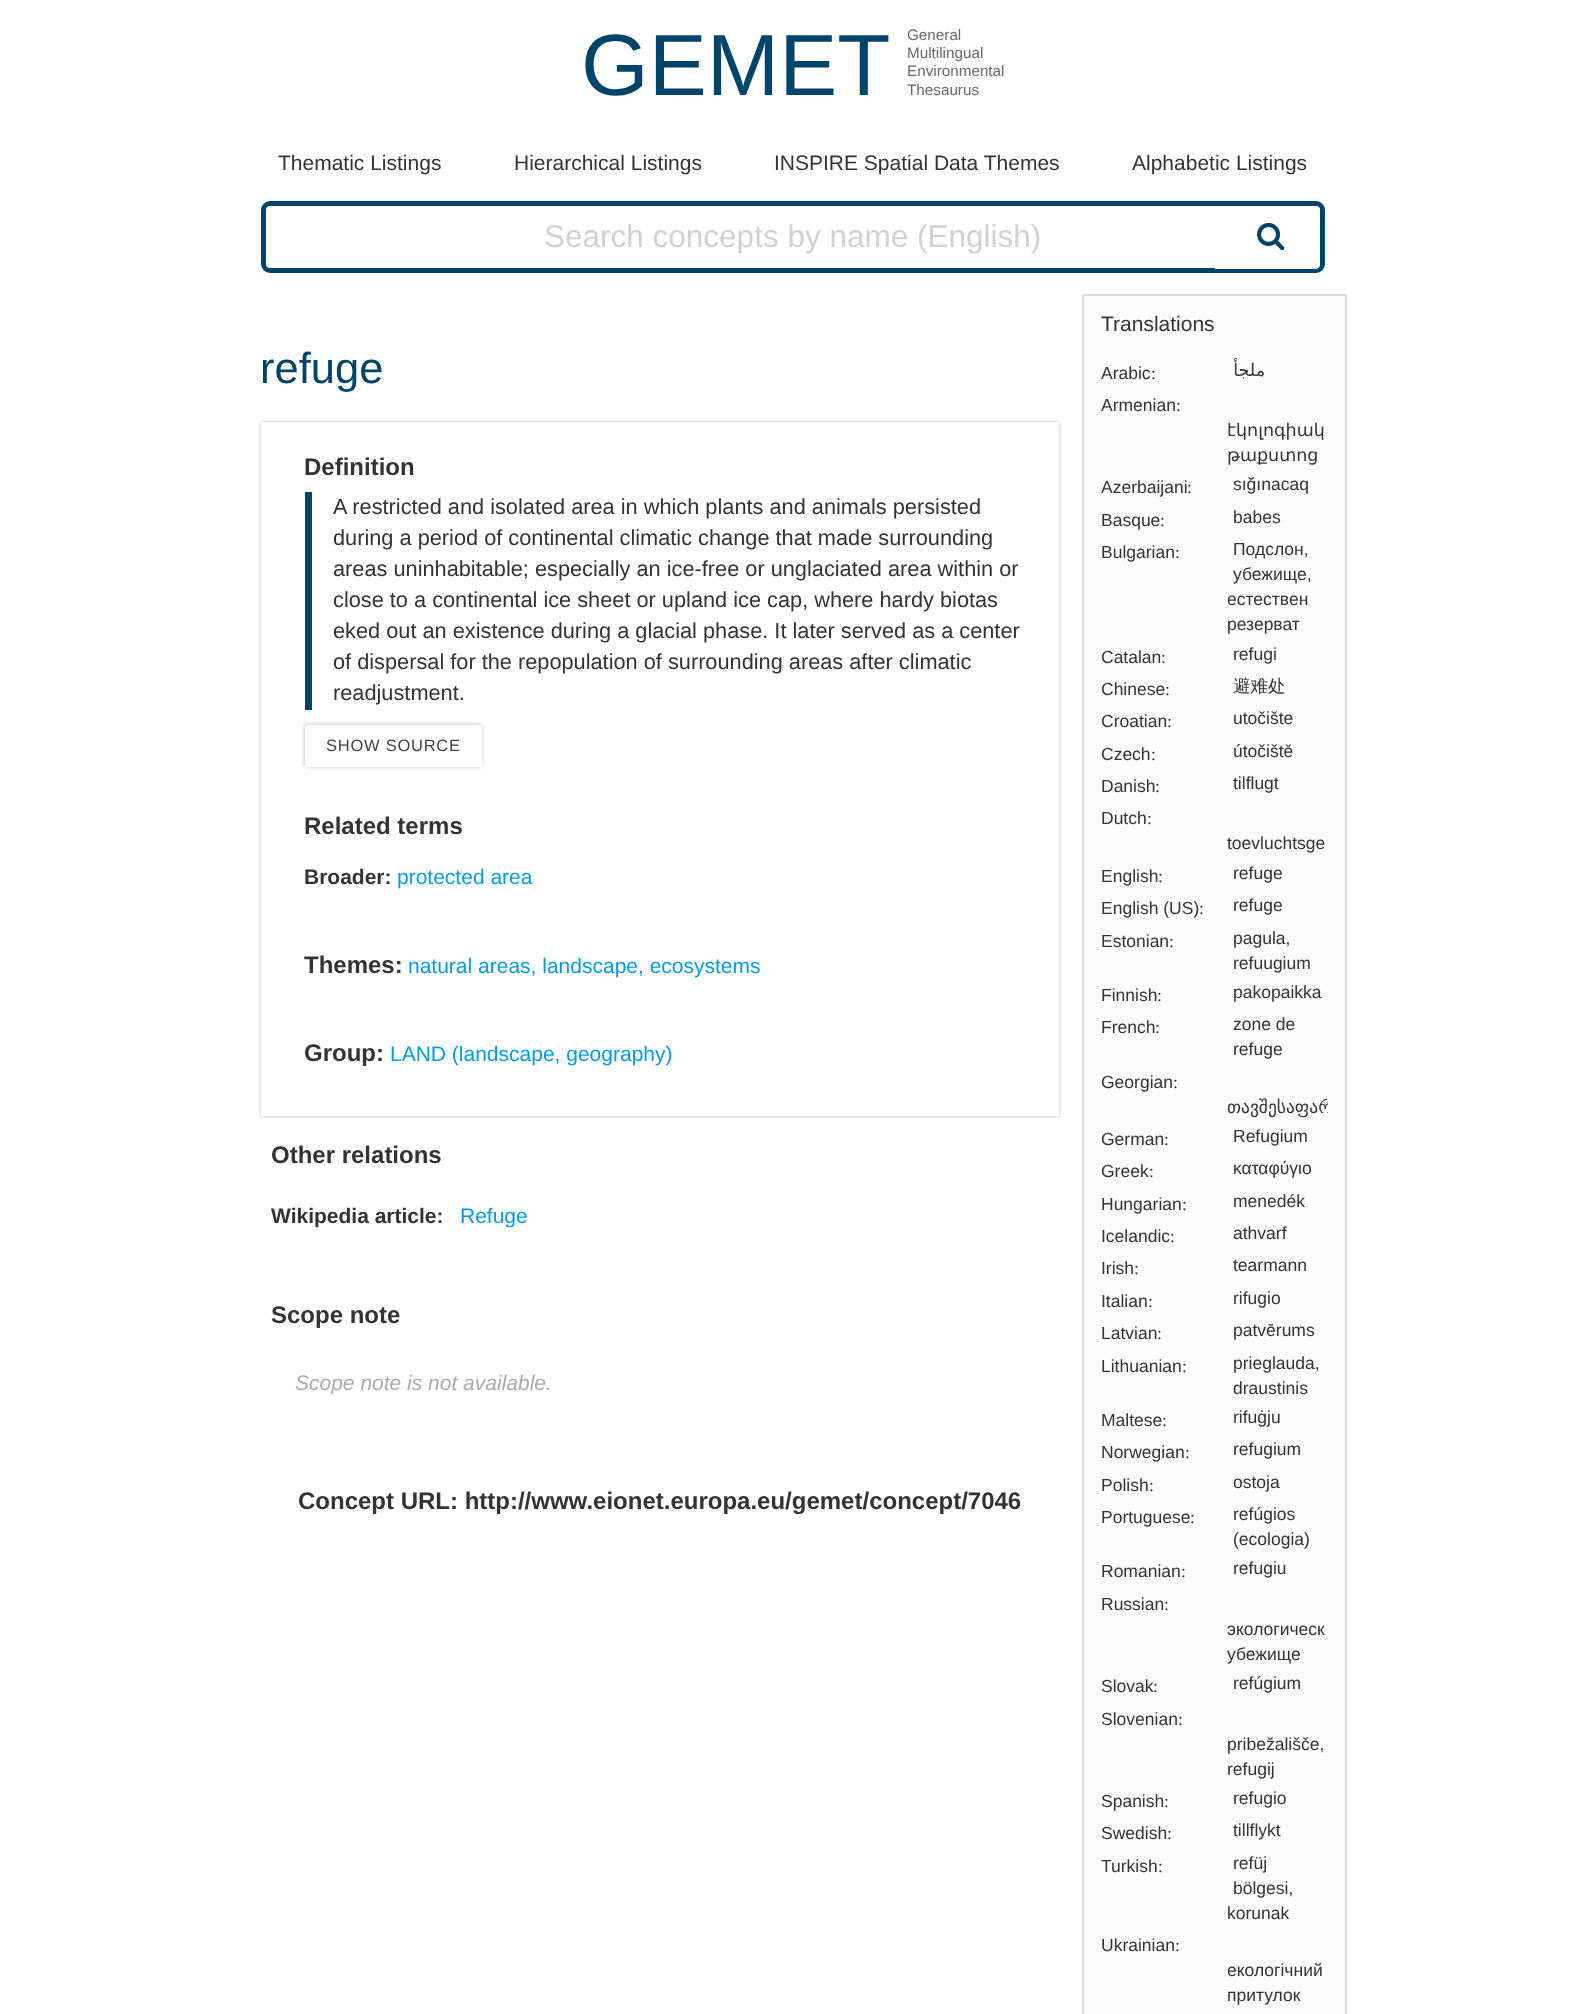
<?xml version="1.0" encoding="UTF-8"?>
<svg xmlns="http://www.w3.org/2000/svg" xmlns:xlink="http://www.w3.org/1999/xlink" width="1585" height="2014">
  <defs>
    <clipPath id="clip1"><path d="M 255 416 h 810 v 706 h -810 z m 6 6 h 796.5 c 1 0 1.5 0.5 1.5 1.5 v 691 c 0 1 -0.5 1.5 -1.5 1.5 h -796.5 z" clip-rule="evenodd" /></clipPath>
    <clipPath id="clip2"><rect x="1101" y="1067" width="227" height="52" /></clipPath>
  </defs>
  <rect width="100%" height="100%" fill="#ffffff" />
  <rect x="263.5" y="203.5" width="1059" height="67" rx="6.5" fill="none" stroke="#00446a" stroke-width="5" />
  <path d="M 1215 206 h 100 c 3 0 5 2 5 5 v 53 c 0 3 -2 5 -5 5 h -100 z" fill="#ffffff" />
  <image x="1257" y="222" width="28" height="29" xlink:href="image1.png" />
  <path d="M 1083.5 295 h 262.5 v 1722 h -262.5 c -0.5 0 -0.5 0 -0.5 -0.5 v -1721 c 0 -0.5 0 -0.5 0.5 -0.5 z" fill="#fbfbfb" stroke="#dddddd" stroke-width="2" />
  <g clip-path="url(#clip1)">
    <rect x="261" y="422" width="798" height="694" rx="1.5" fill="#aaaaaa" filter="blur(1.5px)" />
  </g>
  <rect x="305" y="492" width="7" height="218" fill="#00446a" />
  <rect x="303" y="723" width="180" height="45" rx="5" fill="#dddddd" filter="blur(1.5px)" />
  <rect x="305" y="725" width="177" height="42" rx="3" fill="#ffffff" />
  <text x="581" y="95" style="font-family: Liberation Sans; font-size: 87px; fill: #00446a">GEMET</text>
  <text x="907" y="40" style="font-family: Liberation Sans; font-size: 15.25px; fill: #696969">General</text>
  <text x="907" y="58" style="font-family: Liberation Sans; font-size: 15.25px; fill: #696969">Multilingual</text>
  <text x="907" y="76" style="font-family: Liberation Sans; font-size: 15.25px; fill: #696969">Environmental</text>
  <text x="907" y="95" style="font-family: Liberation Sans; font-size: 15.25px; fill: #696969">Thesaurus</text>
  <text x="278" y="170" style="font-family: Liberation Sans; font-size: 21px; fill: #333333">Thematic Listings</text>
  <text x="514" y="170" style="font-family: Liberation Sans; font-size: 21px; fill: #333333">Hierarchical Listings</text>
  <text x="774" y="170" style="font-family: Liberation Sans; font-size: 21px; fill: #333333">INSPIRE Spatial Data Themes</text>
  <text x="1132" y="170" style="font-family: Liberation Sans; font-size: 21px; fill: #333333">Alphabetic Listings</text>
  <text x="544" y="247" style="font-family: Liberation Sans; font-size: 31.5px; fill: #d1d1d1">Search concepts by name (English)</text>
  <text x="260" y="383" style="font-family: Liberation Sans; font-size: 43.5px; fill: #00446a">refuge</text>
  <text x="1101" y="331" style="font-family: Liberation Sans; font-size: 21px; fill: #333333">Translations</text>
  <text x="1101" y="379" style="font-family: Liberation Sans; font-size: 17.5px; fill: #333333">Arabic</text>
  <text x="1151" y="379" style="font-family: Liberation Serif; font-size: 17.5px; fill: #333333">:</text>
  <text x="1265" y="376" style="font-family: DejaVu Sans; font-size: 17.5px; direction: rtl; fill: #333333">ملجأ</text>
  <text x="1101" y="411" style="font-family: Liberation Sans; font-size: 17.5px; fill: #333333">Armenian</text>
  <text x="1176" y="411" style="font-family: Liberation Serif; font-size: 17.5px; fill: #333333">:</text>
  <text x="1227" y="436" style="font-family: DejaVu Sans; font-size: 17.5px; fill: #333333">էկոլոգիակ</text>
  <text x="1227" y="461" style="font-family: DejaVu Sans; font-size: 17.5px; fill: #333333">թաքստոց</text>
  <text x="1101" y="493" style="font-family: Liberation Sans; font-size: 17.5px; fill: #333333">Azerbaijani</text>
  <text x="1187" y="493" style="font-family: Liberation Serif; font-size: 17.5px; fill: #333333">:</text>
  <text x="1233" y="490" style="font-family: Liberation Sans; font-size: 17.5px; fill: #333333">sığınacaq</text>
  <text x="1101" y="526" style="font-family: Liberation Sans; font-size: 17.5px; fill: #333333">Basque</text>
  <text x="1160" y="526" style="font-family: Liberation Serif; font-size: 17.5px; fill: #333333">:</text>
  <text x="1233" y="523" style="font-family: Liberation Sans; font-size: 17.5px; fill: #333333">babes</text>
  <text x="1101" y="558" style="font-family: Liberation Sans; font-size: 17.5px; fill: #333333">Bulgarian</text>
  <text x="1175" y="558" style="font-family: Liberation Serif; font-size: 17.5px; fill: #333333">:</text>
  <text x="1233" y="555" style="font-family: Liberation Sans; font-size: 17.5px; fill: #333333">Подслон,</text>
  <text x="1233" y="580" style="font-family: Liberation Sans; font-size: 17.5px; fill: #333333">убежище,</text>
  <text x="1227" y="605" style="font-family: Liberation Sans; font-size: 17.5px; fill: #333333">естествен</text>
  <text x="1227" y="630" style="font-family: Liberation Sans; font-size: 17.5px; fill: #333333">резерват</text>
  <text x="1101" y="663" style="font-family: Liberation Sans; font-size: 17.5px; fill: #333333">Catalan</text>
  <text x="1161" y="663" style="font-family: Liberation Serif; font-size: 17.5px; fill: #333333">:</text>
  <text x="1233" y="660" style="font-family: Liberation Sans; font-size: 17.5px; fill: #333333">refugi</text>
  <text x="1101" y="695" style="font-family: Liberation Sans; font-size: 17.5px; fill: #333333">Chinese</text>
  <text x="1165" y="695" style="font-family: Liberation Serif; font-size: 17.5px; fill: #333333">:</text>
  <text x="1233" y="692" style="font-family: WenQuanYi Zen Hei; font-size: 17.5px; font-weight: 500; fill: #333333">避难处</text>
  <text x="1101" y="727" style="font-family: Liberation Sans; font-size: 17.5px; fill: #333333">Croatian</text>
  <text x="1167" y="727" style="font-family: Liberation Serif; font-size: 17.5px; fill: #333333">:</text>
  <text x="1233" y="724" style="font-family: Liberation Sans; font-size: 17.5px; fill: #333333">utočište</text>
  <text x="1101" y="760" style="font-family: Liberation Sans; font-size: 17.5px; fill: #333333">Czech</text>
  <text x="1151" y="760" style="font-family: Liberation Serif; font-size: 17.5px; fill: #333333">:</text>
  <text x="1233" y="757" style="font-family: Liberation Sans; font-size: 17.5px; fill: #333333">útočiště</text>
  <text x="1101" y="792" style="font-family: Liberation Sans; font-size: 17.5px; fill: #333333">Danish</text>
  <text x="1155" y="792" style="font-family: Liberation Serif; font-size: 17.5px; fill: #333333">:</text>
  <text x="1233" y="789" style="font-family: Liberation Sans; font-size: 17.5px; fill: #333333">tilflugt</text>
  <text x="1101" y="824" style="font-family: Liberation Sans; font-size: 17.5px; fill: #333333">Dutch</text>
  <text x="1147" y="824" style="font-family: Liberation Serif; font-size: 17.5px; fill: #333333">:</text>
  <text x="1227" y="849" style="font-family: Liberation Sans; font-size: 17.5px; fill: #333333">toevluchtsge</text>
  <text x="1101" y="882" style="font-family: Liberation Sans; font-size: 17.5px; fill: #333333">English</text>
  <text x="1158" y="882" style="font-family: Liberation Serif; font-size: 17.5px; fill: #333333">:</text>
  <text x="1233" y="879" style="font-family: Liberation Sans; font-size: 17.5px; fill: #333333">refuge</text>
  <text x="1101" y="914" style="font-family: Liberation Sans; font-size: 17.5px; fill: #333333">English (US)</text>
  <text x="1199" y="914" style="font-family: Liberation Serif; font-size: 17.5px; fill: #333333">:</text>
  <text x="1233" y="911" style="font-family: Liberation Sans; font-size: 17.5px; fill: #333333">refuge</text>
  <text x="1101" y="947" style="font-family: Liberation Sans; font-size: 17.5px; fill: #333333">Estonian</text>
  <text x="1169" y="947" style="font-family: Liberation Serif; font-size: 17.5px; fill: #333333">:</text>
  <text x="1233" y="944" style="font-family: Liberation Sans; font-size: 17.5px; fill: #333333">pagula,</text>
  <text x="1233" y="969" style="font-family: Liberation Sans; font-size: 17.5px; fill: #333333">refuugium</text>
  <text x="1101" y="1001" style="font-family: Liberation Sans; font-size: 17.5px; fill: #333333">Finnish</text>
  <text x="1157" y="1001" style="font-family: Liberation Serif; font-size: 17.5px; fill: #333333">:</text>
  <text x="1233" y="998" style="font-family: Liberation Sans; font-size: 17.5px; fill: #333333">pakopaikka</text>
  <text x="1101" y="1033" style="font-family: Liberation Sans; font-size: 17.5px; fill: #333333">French</text>
  <text x="1155" y="1033" style="font-family: Liberation Serif; font-size: 17.5px; fill: #333333">:</text>
  <text x="1233" y="1030" style="font-family: Liberation Sans; font-size: 17.5px; fill: #333333">zone de</text>
  <text x="1233" y="1055" style="font-family: Liberation Sans; font-size: 17.5px; fill: #333333">refuge</text>
  <text x="1101" y="1088" style="font-family: Liberation Sans; font-size: 17.5px; fill: #333333">Georgian</text>
  <text x="1173" y="1088" style="font-family: Liberation Serif; font-size: 17.5px; fill: #333333">:</text>
  <g clip-path="url(#clip2)">
    <text x="1227" y="1113" style="font-family: DejaVu Sans; font-size: 17.5px; fill: #333333">თავშესაფარ</text>
  </g>
  <text x="1101" y="1145" style="font-family: Liberation Sans; font-size: 17.5px; fill: #333333">German</text>
  <text x="1164" y="1145" style="font-family: Liberation Serif; font-size: 17.5px; fill: #333333">:</text>
  <text x="1233" y="1142" style="font-family: Liberation Sans; font-size: 17.5px; fill: #333333">Refugium</text>
  <text x="1101" y="1177" style="font-family: Liberation Sans; font-size: 17.5px; fill: #333333">Greek</text>
  <text x="1149" y="1177" style="font-family: Liberation Serif; font-size: 17.5px; fill: #333333">:</text>
  <text x="1233" y="1174" style="font-family: Liberation Sans; font-size: 17.5px; fill: #333333">καταφύγιο</text>
  <text x="1101" y="1210" style="font-family: Liberation Sans; font-size: 17.5px; fill: #333333">Hungarian</text>
  <text x="1182" y="1210" style="font-family: Liberation Serif; font-size: 17.5px; fill: #333333">:</text>
  <text x="1233" y="1207" style="font-family: Liberation Sans; font-size: 17.5px; fill: #333333">menedék</text>
  <text x="1101" y="1242" style="font-family: Liberation Sans; font-size: 17.5px; fill: #333333">Icelandic</text>
  <text x="1170" y="1242" style="font-family: Liberation Serif; font-size: 17.5px; fill: #333333">:</text>
  <text x="1233" y="1239" style="font-family: Liberation Sans; font-size: 17.5px; fill: #333333">athvarf</text>
  <text x="1101" y="1274" style="font-family: Liberation Sans; font-size: 17.5px; fill: #333333">Irish</text>
  <text x="1134" y="1274" style="font-family: Liberation Serif; font-size: 17.5px; fill: #333333">:</text>
  <text x="1233" y="1271" style="font-family: Liberation Sans; font-size: 17.5px; fill: #333333">tearmann</text>
  <text x="1101" y="1307" style="font-family: Liberation Sans; font-size: 17.5px; fill: #333333">Italian</text>
  <text x="1148" y="1307" style="font-family: Liberation Serif; font-size: 17.5px; fill: #333333">:</text>
  <text x="1233" y="1304" style="font-family: Liberation Sans; font-size: 17.5px; fill: #333333">rifugio</text>
  <text x="1101" y="1339" style="font-family: Liberation Sans; font-size: 17.5px; fill: #333333">Latvian</text>
  <text x="1157" y="1339" style="font-family: Liberation Serif; font-size: 17.5px; fill: #333333">:</text>
  <text x="1233" y="1336" style="font-family: Liberation Sans; font-size: 17.5px; fill: #333333">patvērums</text>
  <text x="1101" y="1372" style="font-family: Liberation Sans; font-size: 17.5px; fill: #333333">Lithuanian</text>
  <text x="1182" y="1372" style="font-family: Liberation Serif; font-size: 17.5px; fill: #333333">:</text>
  <text x="1233" y="1369" style="font-family: Liberation Sans; font-size: 17.5px; fill: #333333">prieglauda,</text>
  <text x="1233" y="1394" style="font-family: Liberation Sans; font-size: 17.5px; fill: #333333">draustinis</text>
  <text x="1101" y="1426" style="font-family: Liberation Sans; font-size: 17.5px; fill: #333333">Maltese</text>
  <text x="1162" y="1426" style="font-family: Liberation Serif; font-size: 17.5px; fill: #333333">:</text>
  <text x="1233" y="1423" style="font-family: Liberation Sans; font-size: 17.5px; fill: #333333">rifuġju</text>
  <text x="1101" y="1458" style="font-family: Liberation Sans; font-size: 17.5px; fill: #333333">Norwegian</text>
  <text x="1185" y="1458" style="font-family: Liberation Serif; font-size: 17.5px; fill: #333333">:</text>
  <text x="1233" y="1455" style="font-family: Liberation Sans; font-size: 17.5px; fill: #333333">refugium</text>
  <text x="1101" y="1491" style="font-family: Liberation Sans; font-size: 17.5px; fill: #333333">Polish</text>
  <text x="1149" y="1491" style="font-family: Liberation Serif; font-size: 17.5px; fill: #333333">:</text>
  <text x="1233" y="1488" style="font-family: Liberation Sans; font-size: 17.5px; fill: #333333">ostoja</text>
  <text x="1101" y="1523" style="font-family: Liberation Sans; font-size: 17.5px; fill: #333333">Portuguese</text>
  <text x="1190" y="1523" style="font-family: Liberation Serif; font-size: 17.5px; fill: #333333">:</text>
  <text x="1233" y="1520" style="font-family: Liberation Sans; font-size: 17.5px; fill: #333333">refúgios</text>
  <text x="1233" y="1545" style="font-family: Liberation Sans; font-size: 17.5px; fill: #333333">(ecologia)</text>
  <text x="1101" y="1577" style="font-family: Liberation Sans; font-size: 17.5px; fill: #333333">Romanian</text>
  <text x="1181" y="1577" style="font-family: Liberation Serif; font-size: 17.5px; fill: #333333">:</text>
  <text x="1233" y="1574" style="font-family: Liberation Sans; font-size: 17.5px; fill: #333333">refugiu</text>
  <text x="1101" y="1610" style="font-family: Liberation Sans; font-size: 17.5px; fill: #333333">Russian</text>
  <text x="1164" y="1610" style="font-family: Liberation Serif; font-size: 17.5px; fill: #333333">:</text>
  <text x="1227" y="1635" style="font-family: Liberation Sans; font-size: 17.5px; fill: #333333">экологическ</text>
  <text x="1227" y="1660" style="font-family: Liberation Sans; font-size: 17.5px; fill: #333333">убежище</text>
  <text x="1101" y="1692" style="font-family: Liberation Sans; font-size: 17.5px; fill: #333333">Slovak</text>
  <text x="1153" y="1692" style="font-family: Liberation Serif; font-size: 17.5px; fill: #333333">:</text>
  <text x="1233" y="1689" style="font-family: Liberation Sans; font-size: 17.5px; fill: #333333">refúgium</text>
  <text x="1101" y="1725" style="font-family: Liberation Sans; font-size: 17.5px; fill: #333333">Slovenian</text>
  <text x="1178" y="1725" style="font-family: Liberation Serif; font-size: 17.5px; fill: #333333">:</text>
  <text x="1227" y="1750" style="font-family: Liberation Sans; font-size: 17.5px; fill: #333333">pribežališče,</text>
  <text x="1227" y="1775" style="font-family: Liberation Sans; font-size: 17.5px; fill: #333333">refugij</text>
  <text x="1101" y="1807" style="font-family: Liberation Sans; font-size: 17.5px; fill: #333333">Spanish</text>
  <text x="1164" y="1807" style="font-family: Liberation Serif; font-size: 17.5px; fill: #333333">:</text>
  <text x="1233" y="1804" style="font-family: Liberation Sans; font-size: 17.5px; fill: #333333">refugio</text>
  <text x="1101" y="1839" style="font-family: Liberation Sans; font-size: 17.5px; fill: #333333">Swedish</text>
  <text x="1167" y="1839" style="font-family: Liberation Serif; font-size: 17.5px; fill: #333333">:</text>
  <text x="1233" y="1836" style="font-family: Liberation Sans; font-size: 17.5px; fill: #333333">tillflykt</text>
  <text x="1101" y="1872" style="font-family: Liberation Sans; font-size: 17.5px; fill: #333333">Turkish</text>
  <text x="1158" y="1872" style="font-family: Liberation Serif; font-size: 17.5px; fill: #333333">:</text>
  <text x="1233" y="1869" style="font-family: Liberation Sans; font-size: 17.5px; fill: #333333">refüj</text>
  <text x="1233" y="1894" style="font-family: Liberation Sans; font-size: 17.5px; fill: #333333">bölgesi,</text>
  <text x="1227" y="1919" style="font-family: Liberation Sans; font-size: 17.5px; fill: #333333">korunak</text>
  <text x="1101" y="1951" style="font-family: Liberation Sans; font-size: 17.5px; fill: #333333">Ukrainian</text>
  <text x="1175" y="1951" style="font-family: Liberation Serif; font-size: 17.5px; fill: #333333">:</text>
  <text x="1227" y="1976" style="font-family: Liberation Sans; font-size: 17.5px; fill: #333333">екологічний</text>
  <text x="1227" y="2001" style="font-family: Liberation Sans; font-size: 17.5px; fill: #333333">притулок</text>
  <text x="304" y="475" style="font-family: Liberation Sans; font-size: 24px; font-weight: bold; fill: #333333">Definition</text>
  <text x="333" y="514" style="font-family: Liberation Sans; font-size: 21.75px; fill: #333333">A restricted and isolated area in which plants and animals persisted</text>
  <text x="333" y="545" style="font-family: Liberation Sans; font-size: 21.75px; fill: #333333">during a period of continental climatic change that made surrounding</text>
  <text x="333" y="576" style="font-family: Liberation Sans; font-size: 21.75px; fill: #333333">areas uninhabitable; especially an ice-free or unglaciated area within or</text>
  <text x="333" y="607" style="font-family: Liberation Sans; font-size: 21.75px; fill: #333333">close to a continental ice sheet or upland ice cap, where hardy biotas</text>
  <text x="333" y="638" style="font-family: Liberation Sans; font-size: 21.75px; fill: #333333">eked out an existence during a glacial phase. It later served as a center</text>
  <text x="333" y="669" style="font-family: Liberation Sans; font-size: 21.75px; fill: #333333">of dispersal for the repopulation of surrounding areas after climatic</text>
  <text x="333" y="700" style="font-family: Liberation Sans; font-size: 21.75px; fill: #333333">readjustment.</text>
  <text x="326" y="751" style="font-family: Liberation Sans; font-size: 16.5px; letter-spacing: 0.75px; fill: #424242">SHOW SOURCE</text>
  <text x="304" y="834" style="font-family: Liberation Sans; font-size: 24px; font-weight: bold; fill: #333333">Related terms</text>
  <text x="304" y="884" style="font-family: Liberation Sans; font-size: 21px; font-weight: bold; fill: #333333">Broader:</text>
  <text x="397" y="884" style="font-family: Liberation Sans; font-size: 21px; fill: #039be5">protected area</text>
  <text x="304" y="973" style="font-family: Liberation Sans; font-size: 24px; font-weight: bold; fill: #333333">Themes:</text>
  <text x="408" y="973" style="font-family: Liberation Sans; font-size: 21px; fill: #039be5">natural areas, landscape, ecosystems</text>
  <text x="304" y="1061" style="font-family: Liberation Sans; font-size: 24px; font-weight: bold; fill: #333333">Group:</text>
  <text x="390" y="1061" style="font-family: Liberation Sans; font-size: 21px; fill: #039be5">LAND (landscape, geography)</text>
  <text x="271" y="1163" style="font-family: Liberation Sans; font-size: 24px; font-weight: bold; fill: #333333">Other relations</text>
  <text x="271" y="1223" style="font-family: Liberation Sans; font-size: 21px; font-weight: bold; fill: #333333">Wikipedia article:</text>
  <text x="460" y="1223" style="font-family: Liberation Sans; font-size: 21px; fill: #039be5">Refuge</text>
  <text x="271" y="1323" style="font-family: Liberation Sans; font-size: 24px; font-weight: bold; fill: #333333">Scope note</text>
  <text x="295" y="1390" style="font-family: Liberation Sans; font-size: 21px; font-style: italic; fill: #aaaaaa">Scope note is not available.</text>
  <text x="298" y="1509" style="font-family: Liberation Sans; font-size: 24px; font-weight: bold; fill: #333333">Concept URL: http://www.eionet.europa.eu/gemet/concept/7046</text>
</svg>
